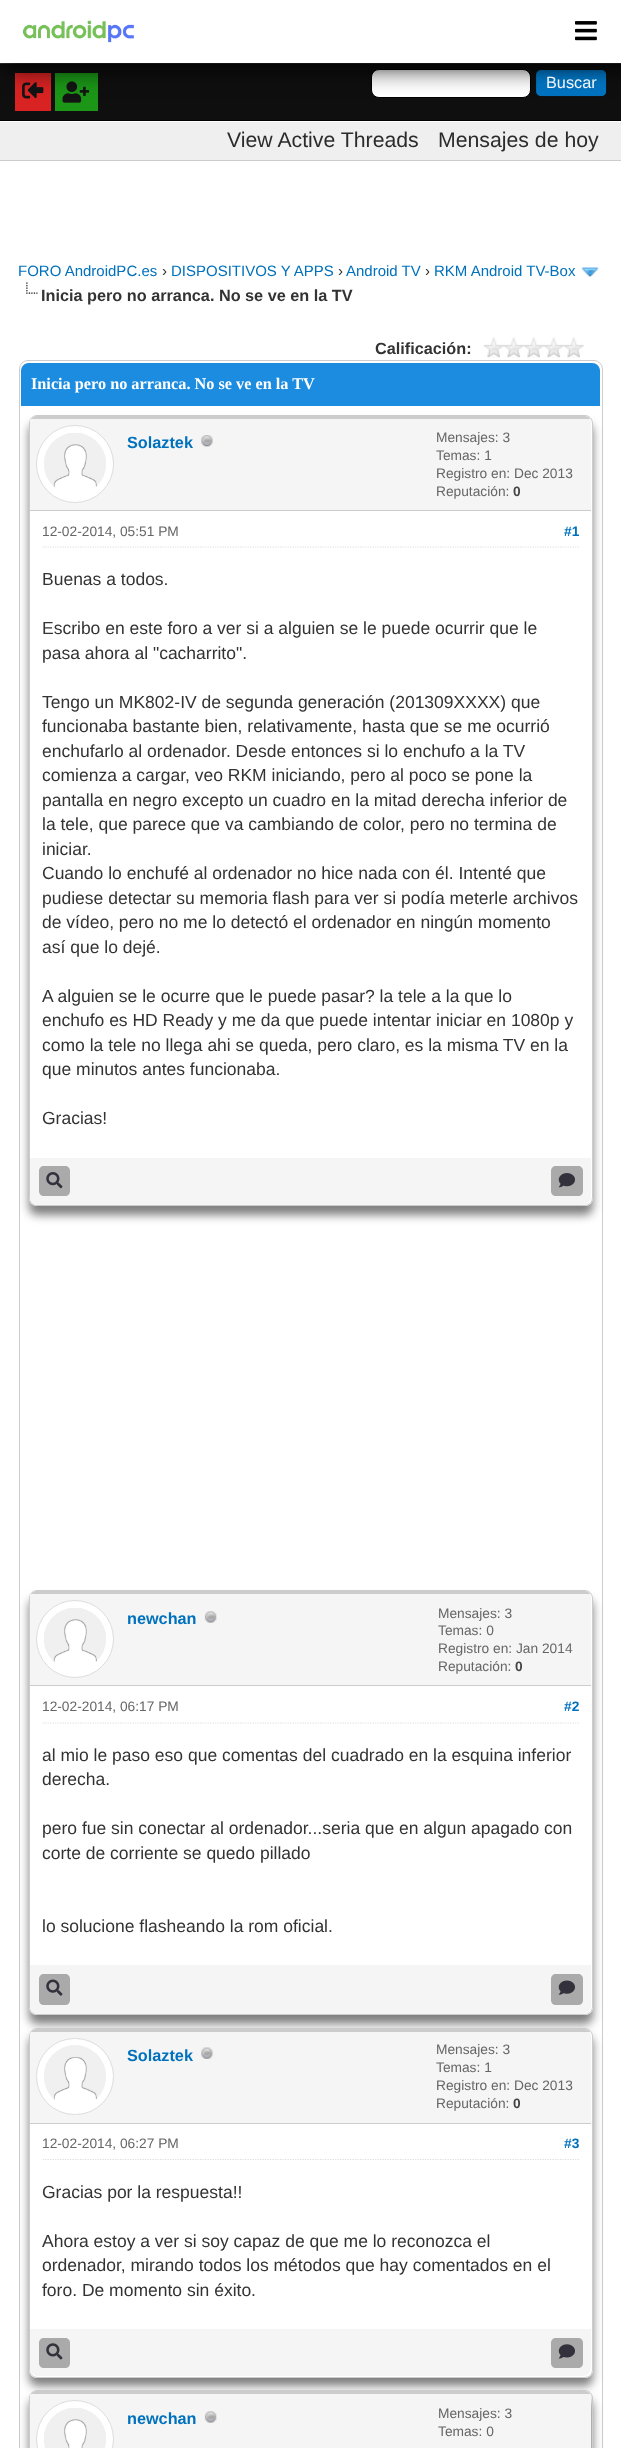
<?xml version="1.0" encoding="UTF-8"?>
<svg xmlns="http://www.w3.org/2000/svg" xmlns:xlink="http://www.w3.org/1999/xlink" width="621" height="2448">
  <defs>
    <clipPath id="clip1"><path d="M 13 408 h 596 v 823 h -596 z m 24 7 h 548 c 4.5 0 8 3.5 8 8 v 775 c 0 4.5 -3.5 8 -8 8 h -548 c -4.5 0 -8 -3.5 -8 -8 v -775 c 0 -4.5 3.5 -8 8 -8 z" clip-rule="evenodd" /></clipPath>
    <clipPath id="clip2"><rect x="30" y="416" width="561" height="789" rx="6" /></clipPath>
    <clipPath id="clip3"><path d="M 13 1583 h 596 v 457 h -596 z m 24 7 h 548 c 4.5 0 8 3.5 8 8 v 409 c 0 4.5 -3.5 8 -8 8 h -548 c -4.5 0 -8 -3.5 -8 -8 v -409 c 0 -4.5 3.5 -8 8 -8 z" clip-rule="evenodd" /></clipPath>
    <clipPath id="clip4"><rect x="30" y="1591" width="561" height="423" rx="6" /></clipPath>
    <clipPath id="clip5"><path d="M 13 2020 h 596 v 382 h -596 z m 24 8 h 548 c 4.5 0 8 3.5 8 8 v 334 c 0 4.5 -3.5 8 -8 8 h -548 c -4.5 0 -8 -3.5 -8 -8 v -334 c 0 -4.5 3.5 -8 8 -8 z" clip-rule="evenodd" /></clipPath>
    <clipPath id="clip6"><rect x="30" y="2029" width="561" height="347" rx="6" /></clipPath>
    <clipPath id="clip7"><rect x="30" y="2391" width="561" height="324" rx="6" /></clipPath>
  </defs>
  <rect width="100%" height="100%" fill="#ffffff" />
  <rect y="64" width="621" height="56" fill="#0f0f0f" />
  <rect y="63" width="621" height="1" fill="#444444" />
  <rect x="15" y="73" width="36" height="38" fill="#d92323" />
  <rect x="55" y="73" width="43" height="38" fill="#1b9617" />
  <rect x="371.5" y="69.5" width="159" height="28" rx="7.5" fill="#ffffff" stroke="#000000" />
  <rect x="536" y="70" width="70" height="26" rx="5" fill="#0066a2" />
  <image x="536" y="70" width="71" height="27" xlink:href="image5.png" />
  <rect x="-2" y="-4" width="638" height="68" fill="#000000" fill-opacity="0.5" filter="blur(5px)" />
  <image x="22" y="82" width="22" height="17" xlink:href="image3.png" />
  <image x="62" y="81" width="28" height="22" xlink:href="image4.png" />
  <rect x="6" y="19" width="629" height="50" fill="#000000" fill-opacity="0.79" filter="blur(12.5px)" />
  <rect width="621" height="63" fill="#ffffff" />
  <image x="22" y="20" width="112" height="23" xlink:href="image1.png" />
  <image x="575" y="21" width="22" height="20" xlink:href="image2.png" />
  <rect y="120" width="621" height="1" fill="#000000" />
  <rect y="122" width="621" height="38" fill="#efefef" />
  <rect y="160" width="621" height="1" fill="#cccccc" />
  <image x="581" y="267" width="18" height="10" xlink:href="image6.png" />
  <image x="26" y="282" width="12" height="12" xlink:href="image7.png" />
  <image x="483" y="337" width="101" height="21" xlink:href="image8.png" />
  <rect x="19.5" y="360.5" width="583" height="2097" rx="8.5" fill="none" stroke="#cccccc" />
  <path d="M 29 363 h 563 c 4.5 0 8 3.5 8 8 v 35 h -579 v -35 c 0 -4.5 3.5 -8 8 -8 z" fill="#1b8ce0" />
  <g clip-path="url(#clip1)">
    <rect x="29" y="424" width="564" height="791" rx="8" fill="#000000" fill-opacity="0.5" filter="blur(5px)" />
  </g>
  <rect x="29.5" y="415.5" width="563" height="790" rx="7.5" fill="none" stroke="#cccccc" />
  <path d="M 36 416 h 549 c 3.5 0 6 2.5 6 6 v 89 h -561 v -89 c 0 -3.5 2.5 -6 6 -6 z" fill="#f5f5f5" />
  <g clip-path="url(#clip2)">
    <rect x="30" y="416" width="561" height="3" fill="#cccccc" />
  </g>
  <rect x="30" y="510" width="561" height="1" fill="#cccccc" />
  <circle cx="75" cy="464" r="38.5" fill="#ffffff" stroke="#dddddd" />
  <image x="44" y="433" width="62" height="55" xlink:href="image9.png" />
  <image x="201" y="435" width="12" height="12" xlink:href="image10.png" />
  <path d="M 42.5 547 h 536.5" fill="none" stroke="#dddddd" stroke-width="1.2" stroke-dasharray="1.25 1.25" />
  <path d="M 30 1158 h 561 v 39 c 0 4.5 -3.5 8 -8 8 h -545 c -4.5 0 -8 -3.5 -8 -8 z" fill="#f5f5f5" />
  <path d="M 44 1166 h 21 c 3 0 5 2 5 5 v 20 c 0 3 -2 5 -5 5 h -21 c -3 0 -5 -2 -5 -5 v -20 c 0 -3 2 -5 5 -5 z" fill="#aaaaaa" />
  <image x="46" y="1172" width="17" height="17" xlink:href="image11.png" />
  <path d="M 556 1166 h 22 c 3 0 5 2 5 5 v 20 c 0 3 -2 5 -5 5 h -22 c -3 0 -5 -2 -5 -5 v -20 c 0 -3 2 -5 5 -5 z" fill="#aaaaaa" />
  <image x="558" y="1173" width="17" height="15" xlink:href="image12.png" />
  <g clip-path="url(#clip3)">
    <rect x="29" y="1599" width="564" height="425" rx="8" fill="#000000" fill-opacity="0.5" filter="blur(5px)" />
  </g>
  <rect x="29.5" y="1590.5" width="563" height="424" rx="7.5" fill="none" stroke="#cccccc" />
  <path d="M 36 1591 h 549 c 3.5 0 6 2.5 6 6 v 89 h -561 v -89 c 0 -3.5 2.5 -6 6 -6 z" fill="#f5f5f5" />
  <g clip-path="url(#clip4)">
    <rect x="30" y="1591" width="561" height="3" fill="#cccccc" />
  </g>
  <rect x="30" y="1685" width="561" height="1" fill="#cccccc" />
  <circle cx="75" cy="1639" r="38.5" fill="#ffffff" stroke="#dddddd" />
  <image x="44" y="1608" width="62" height="55" xlink:href="image9.png" />
  <image x="204" y="1611" width="13" height="12" xlink:href="image13.png" />
  <path d="M 42.5 1723 h 536.5" fill="none" stroke="#dddddd" stroke-width="1.2" stroke-dasharray="1.25 1.25" />
  <path d="M 30 1965 h 561 v 41 c 0 4.5 -3.5 8 -8 8 h -545 c -4.5 0 -8 -3.5 -8 -8 z" fill="#f5f5f5" />
  <path d="M 44 1974 h 21 c 3 0 5 2 5 5 v 21 c 0 3 -2 5 -5 5 h -21 c -3 0 -5 -2 -5 -5 v -21 c 0 -3 2 -5 5 -5 z" fill="#aaaaaa" />
  <image x="46" y="1979" width="17" height="17" xlink:href="image14.png" />
  <path d="M 556 1974 h 22 c 3 0 5 2 5 5 v 21 c 0 3 -2 5 -5 5 h -22 c -3 0 -5 -2 -5 -5 v -21 c 0 -3 2 -5 5 -5 z" fill="#aaaaaa" />
  <image x="558" y="1980" width="17" height="15" xlink:href="image15.png" />
  <g clip-path="url(#clip5)">
    <rect x="29" y="2036" width="564" height="350" rx="8" fill="#000000" fill-opacity="0.5" filter="blur(5px)" />
  </g>
  <rect x="29.5" y="2028.5" width="563" height="349" rx="7.5" fill="none" stroke="#cccccc" />
  <path d="M 36 2029 h 549 c 3.5 0 6 2.5 6 6 v 89 h -561 v -89 c 0 -3.5 2.5 -6 6 -6 z" fill="#f5f5f5" />
  <g clip-path="url(#clip6)">
    <rect x="30" y="2029" width="561" height="3" fill="#cccccc" />
  </g>
  <rect x="30" y="2123" width="561" height="1" fill="#cccccc" />
  <rect x="36.5" y="2038.5" width="77" height="76" rx="38" fill="#ffffff" stroke="#dddddd" />
  <image x="44" y="2045" width="62" height="55" xlink:href="image16.png" />
  <image x="201" y="2047" width="12" height="12" xlink:href="image17.png" />
  <path d="M 42.5 2159.5 h 536.5" fill="none" stroke="#dddddd" stroke-width="1.2" stroke-dasharray="1.25 1.25" />
  <path d="M 30 2329 h 561 v 39 c 0 4.5 -3.5 8 -8 8 h -545 c -4.5 0 -8 -3.5 -8 -8 z" fill="#f5f5f5" />
  <path d="M 44 2338 h 21 c 3 0 5 2 5 5 v 20 c 0 3 -2 5 -5 5 h -21 c -3 0 -5 -2 -5 -5 v -20 c 0 -3 2 -5 5 -5 z" fill="#aaaaaa" />
  <image x="46" y="2343" width="17" height="17" xlink:href="image18.png" />
  <path d="M 556 2338 h 22 c 3 0 5 2 5 5 v 20 c 0 3 -2 5 -5 5 h -22 c -3 0 -5 -2 -5 -5 v -20 c 0 -3 2 -5 5 -5 z" fill="#aaaaaa" />
  <image x="558" y="2344" width="17" height="15" xlink:href="image19.png" />
  <rect x="29" y="2399" width="564" height="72" rx="8" fill="#000000" fill-opacity="0.5" filter="blur(5px)" />
  <rect x="29.5" y="2390.5" width="563" height="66" rx="7.5" fill="none" stroke="#cccccc" />
  <path d="M 36 2391 h 549 c 3.5 0 6 2.5 6 6 v 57 h -561 v -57 c 0 -3.5 2.5 -6 6 -6 z" fill="#f5f5f5" />
  <g clip-path="url(#clip7)">
    <rect x="30" y="2391" width="561" height="3" fill="#cccccc" />
  </g>
  <circle cx="75" cy="2439" r="38.5" fill="#ffffff" stroke="#dddddd" />
  <image x="44" y="2408" width="62" height="40" xlink:href="image20.png" />
  <image x="204" y="2411" width="13" height="12" xlink:href="image13.png" />
  <text x="546" y="88" style="font-family: Liberation Sans; font-size: 16.25px; fill: #f5f5f5">Buscar</text>
  <text x="227" y="147" style="font-family: Liberation Sans; font-size: 21.25px; fill: #2b2b2b">View Active Threads</text>
  <text x="438" y="147" style="font-family: Liberation Sans; font-size: 21.25px; fill: #2b2b2b">Mensajes de hoy</text>
  <text x="18" y="276" style="font-family: Liberation Sans; font-size: 15px; fill: #0071bc">FORO AndroidPC.es</text>
  <text x="162" y="276" style="font-family: Liberation Sans; font-size: 15px; fill: #333333">›</text>
  <text x="171" y="276" style="font-family: Liberation Sans; font-size: 15px; fill: #0071bc">DISPOSITIVOS Y APPS</text>
  <text x="338" y="276" style="font-family: Liberation Sans; font-size: 15px; fill: #333333">›</text>
  <text x="346" y="276" style="font-family: Liberation Sans; font-size: 15px; fill: #0071bc">Android TV</text>
  <text x="425" y="276" style="font-family: Liberation Sans; font-size: 15px; fill: #333333">›</text>
  <text x="434" y="276" style="font-family: Liberation Sans; font-size: 15px; fill: #0071bc">RKM Android TV-Box</text>
  <text x="41" y="301" style="font-family: Liberation Sans; font-size: 16.25px; font-weight: bold; fill: #333333">Inicia pero no arranca. No se ve en la TV</text>
  <text x="375" y="354" style="font-family: Liberation Sans; font-size: 16.25px; font-weight: bold; fill: #333333">Calificación:</text>
  <text x="31" y="389" style="font-family: Liberation Serif; font-size: 16.25px; font-weight: bold; fill: #ffffff">Inicia pero no arranca. No se ve en la TV</text>
  <text x="127" y="448" style="font-family: Liberation Sans; font-size: 16.25px; font-weight: bold; fill: #0071bc">Solaztek</text>
  <text x="436" y="442" style="font-family: Liberation Sans; font-size: 13.75px; fill: #666666">Mensajes: 3</text>
  <text x="436" y="460" style="font-family: Liberation Sans; font-size: 13.75px; fill: #666666">Temas: 1</text>
  <text x="436" y="478" style="font-family: Liberation Sans; font-size: 13.75px; fill: #666666">Registro en: Dec 2013</text>
  <text x="436" y="496" style="font-family: Liberation Sans; font-size: 13.75px; fill: #666666">Reputación:</text>
  <text x="513" y="496" style="font-family: Liberation Sans; font-size: 13.75px; font-weight: bold; fill: #444444">0</text>
  <text x="42" y="536" style="font-family: Liberation Sans; font-size: 13.75px; fill: #666666">12-02-2014, 05:51 PM</text>
  <text x="564" y="536" style="font-family: Liberation Sans; font-size: 13.75px; font-weight: bold; fill: #0071bc">#1</text>
  <text x="42" y="585" style="font-family: Liberation Sans; font-size: 17.5px; fill: #333333">Buenas a todos.</text>
  <text x="42" y="634" style="font-family: Liberation Sans; font-size: 17.5px; fill: #333333">Escribo en este foro a ver si a alguien se le puede ocurrir que le</text>
  <text x="42" y="659" style="font-family: Liberation Sans; font-size: 17.5px; fill: #333333">pasa ahora al "cacharrito".</text>
  <text x="42" y="708" style="font-family: Liberation Sans; font-size: 17.5px; fill: #333333">Tengo un MK802-IV de segunda generación (201309XXXX) que</text>
  <text x="42" y="732" style="font-family: Liberation Sans; font-size: 17.5px; fill: #333333">funcionaba bastante bien, relativamente, hasta que se me ocurrió</text>
  <text x="42" y="757" style="font-family: Liberation Sans; font-size: 17.5px; fill: #333333">enchufarlo al ordenador. Desde entonces si lo enchufo a la TV</text>
  <text x="42" y="781" style="font-family: Liberation Sans; font-size: 17.5px; fill: #333333">comienza a cargar, veo RKM iniciando, pero al poco se pone la</text>
  <text x="42" y="806" style="font-family: Liberation Sans; font-size: 17.5px; fill: #333333">pantalla en negro excepto un cuadro en la mitad derecha inferior de</text>
  <text x="42" y="830" style="font-family: Liberation Sans; font-size: 17.5px; fill: #333333">la tele, que parece que va cambiando de color, pero no termina de</text>
  <text x="42" y="855" style="font-family: Liberation Sans; font-size: 17.5px; fill: #333333">iniciar.</text>
  <text x="42" y="879" style="font-family: Liberation Sans; font-size: 17.5px; fill: #333333">Cuando lo enchufé al ordenador no hice nada con él. Intenté que</text>
  <text x="42" y="904" style="font-family: Liberation Sans; font-size: 17.5px; fill: #333333">pudiese detectar su memoria flash para ver si podía meterle archivos</text>
  <text x="42" y="928" style="font-family: Liberation Sans; font-size: 17.5px; fill: #333333">de vídeo, pero no me lo detectó el ordenador en ningún momento</text>
  <text x="42" y="953" style="font-family: Liberation Sans; font-size: 17.5px; fill: #333333">así que lo dejé.</text>
  <text x="42" y="1002" style="font-family: Liberation Sans; font-size: 17.5px; fill: #333333">A alguien se le ocurre que le puede pasar? la tele a la que lo</text>
  <text x="42" y="1026" style="font-family: Liberation Sans; font-size: 17.5px; fill: #333333">enchufo es HD Ready y me da que puede intentar iniciar en 1080p y</text>
  <text x="42" y="1051" style="font-family: Liberation Sans; font-size: 17.5px; fill: #333333">como la tele no llega ahi se queda, pero claro, es la misma TV en la</text>
  <text x="42" y="1075" style="font-family: Liberation Sans; font-size: 17.5px; fill: #333333">que minutos antes funcionaba.</text>
  <text x="42" y="1124" style="font-family: Liberation Sans; font-size: 17.5px; fill: #333333">Gracias!</text>
  <text x="127" y="1624" style="font-family: Liberation Sans; font-size: 16.25px; font-weight: bold; fill: #0071bc">newchan</text>
  <text x="438" y="1618" style="font-family: Liberation Sans; font-size: 13.75px; fill: #666666">Mensajes: 3</text>
  <text x="438" y="1635" style="font-family: Liberation Sans; font-size: 13.75px; fill: #666666">Temas: 0</text>
  <text x="438" y="1653" style="font-family: Liberation Sans; font-size: 13.75px; fill: #666666">Registro en: Jan 2014</text>
  <text x="438" y="1671" style="font-family: Liberation Sans; font-size: 13.75px; fill: #666666">Reputación:</text>
  <text x="515" y="1671" style="font-family: Liberation Sans; font-size: 13.75px; font-weight: bold; fill: #444444">0</text>
  <text x="42" y="1711" style="font-family: Liberation Sans; font-size: 13.75px; fill: #666666">12-02-2014, 06:17 PM</text>
  <text x="564" y="1711" style="font-family: Liberation Sans; font-size: 13.75px; font-weight: bold; fill: #0071bc">#2</text>
  <text x="42" y="1761" style="font-family: Liberation Sans; font-size: 17.5px; fill: #333333">al mio le paso eso que comentas del cuadrado en la esquina inferior</text>
  <text x="42" y="1785" style="font-family: Liberation Sans; font-size: 17.5px; fill: #333333">derecha.</text>
  <text x="42" y="1834" style="font-family: Liberation Sans; font-size: 17.5px; fill: #333333">pero fue sin conectar al ordenador...seria que en algun apagado con</text>
  <text x="42" y="1859" style="font-family: Liberation Sans; font-size: 17.5px; fill: #333333">corte de corriente se quedo pillado</text>
  <text x="42" y="1932" style="font-family: Liberation Sans; font-size: 17.5px; fill: #333333">lo solucione flasheando la rom oficial.</text>
  <text x="127" y="2061" style="font-family: Liberation Sans; font-size: 16.25px; font-weight: bold; fill: #0071bc">Solaztek</text>
  <text x="436" y="2054" style="font-family: Liberation Sans; font-size: 13.75px; fill: #666666">Mensajes: 3</text>
  <text x="436" y="2072" style="font-family: Liberation Sans; font-size: 13.75px; fill: #666666">Temas: 1</text>
  <text x="436" y="2090" style="font-family: Liberation Sans; font-size: 13.75px; fill: #666666">Registro en: Dec 2013</text>
  <text x="436" y="2108" style="font-family: Liberation Sans; font-size: 13.75px; fill: #666666">Reputación:</text>
  <text x="513" y="2108" style="font-family: Liberation Sans; font-size: 13.75px; font-weight: bold; fill: #444444">0</text>
  <text x="42" y="2148" style="font-family: Liberation Sans; font-size: 13.75px; fill: #666666">12-02-2014, 06:27 PM</text>
  <text x="564" y="2148" style="font-family: Liberation Sans; font-size: 13.75px; font-weight: bold; fill: #0071bc">#3</text>
  <text x="42" y="2198" style="font-family: Liberation Sans; font-size: 17.5px; fill: #333333">Gracias por la respuesta!!</text>
  <text x="42" y="2247" style="font-family: Liberation Sans; font-size: 17.5px; fill: #333333">Ahora estoy a ver si soy capaz de que me lo reconozca el</text>
  <text x="42" y="2271" style="font-family: Liberation Sans; font-size: 17.5px; fill: #333333">ordenador, mirando todos los métodos que hay comentados en el</text>
  <text x="42" y="2296" style="font-family: Liberation Sans; font-size: 17.5px; fill: #333333">foro. De momento sin éxito.</text>
  <text x="127" y="2424" style="font-family: Liberation Sans; font-size: 16.25px; font-weight: bold; fill: #0071bc">newchan</text>
  <text x="438" y="2418" style="font-family: Liberation Sans; font-size: 13.75px; fill: #666666">Mensajes: 3</text>
  <text x="438" y="2436" style="font-family: Liberation Sans; font-size: 13.75px; fill: #666666">Temas: 0</text>
</svg>
